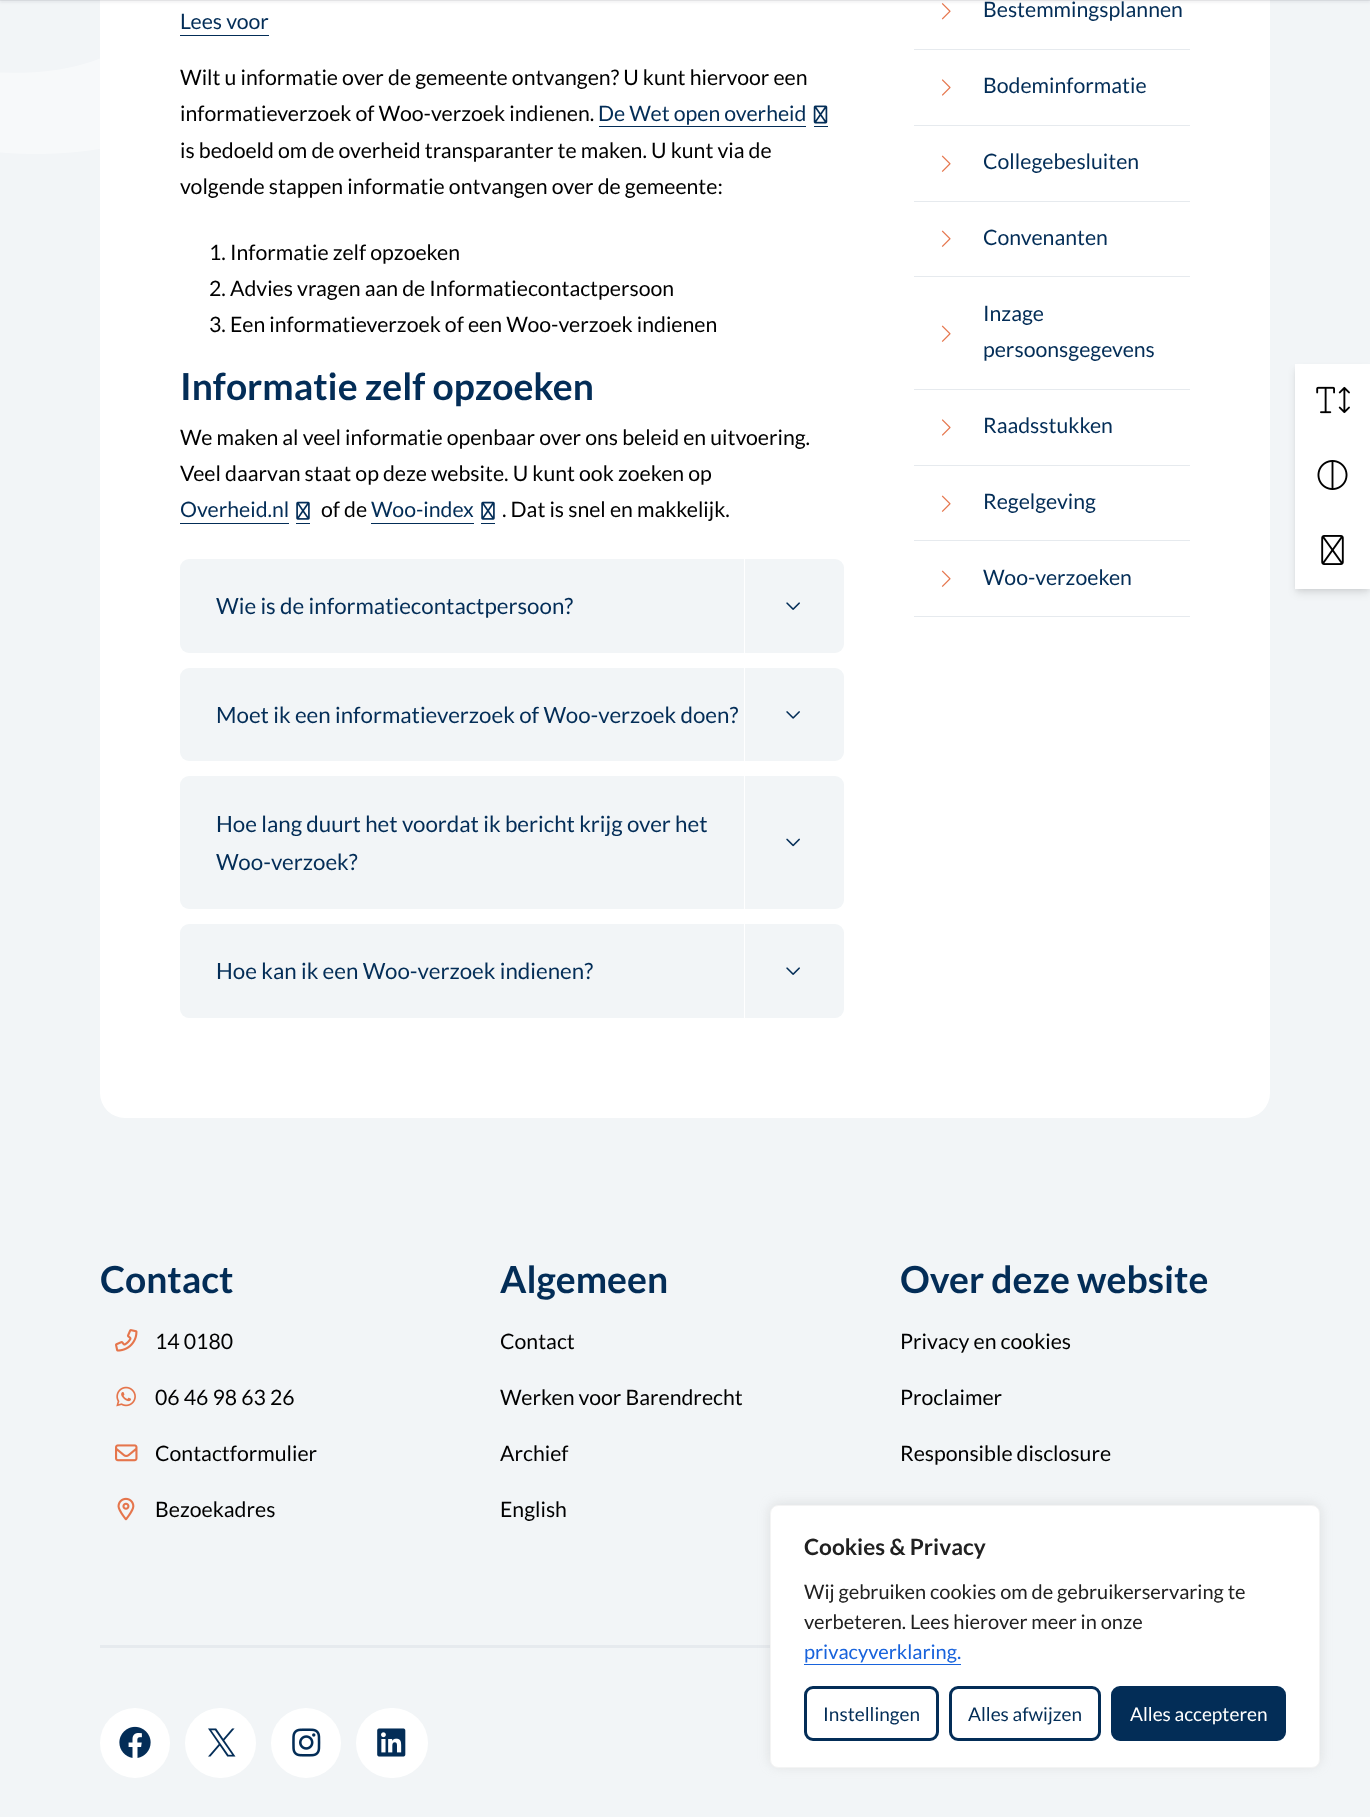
<?xml version="1.0" encoding="UTF-8"?>
<svg xmlns="http://www.w3.org/2000/svg" xmlns:xlink="http://www.w3.org/1999/xlink" width="1370" height="1817">
  <rect width="100%" height="100%" fill="#f2f5f7" />
  <rect x="100" y="-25" width="1170" height="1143" rx="25" fill="#ffffff" />
  <image x="941" y="3" width="10" height="17" xlink:href="image7.png" />
  <rect y="-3" width="1370" height="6" fill="#282c35" fill-opacity="0.05" filter="blur(1px)" />
  <rect y="-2" width="1370" height="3" fill="#282c35" fill-opacity="0.08" filter="blur(0.5px)" />
  <image x="0" y="58" width="100" height="96" xlink:href="image1.png" />
  <rect x="180" y="35" width="89" height="1" fill="#032d57" />
  <rect x="599" y="126" width="207" height="1" fill="#032d57" />
  <rect x="814" y="126" width="14" height="1" fill="#032d57" />
  <image x="813" y="105" width="15" height="19" xlink:href="image2.png" />
  <rect x="180" y="523" width="109" height="1" fill="#032d57" />
  <rect x="296" y="523" width="14" height="1" fill="#032d57" />
  <image x="296" y="501" width="14" height="19" xlink:href="image3.png" />
  <rect x="371" y="523" width="103" height="1" fill="#032d57" />
  <rect x="481" y="523" width="14" height="1" fill="#032d57" />
  <image x="481" y="501" width="14" height="19" xlink:href="image3.png" />
  <rect x="180" y="559" width="664" height="94" rx="9" fill="#f2f5f7" />
  <rect x="744" y="559" width="1" height="94" fill="#ffffff" />
  <image x="786" y="602" width="14" height="8" xlink:href="image4.png" />
  <rect x="180" y="668" width="664" height="93" rx="9" fill="#f2f5f7" />
  <rect x="744" y="668" width="1" height="93" fill="#ffffff" />
  <image x="786" y="711" width="14" height="8" xlink:href="image5.png" />
  <rect x="180" y="776" width="664" height="133" rx="9" fill="#f2f5f7" />
  <rect x="744" y="776" width="1" height="133" fill="#ffffff" />
  <image x="786" y="838" width="14" height="9" xlink:href="image6.png" />
  <rect x="180" y="924" width="664" height="94" rx="9" fill="#f2f5f7" />
  <rect x="744" y="924" width="1" height="94" fill="#ffffff" />
  <image x="786" y="967" width="14" height="8" xlink:href="image4.png" />
  <rect x="914" y="49" width="276" height="1" fill="#e6eaee" />
  <rect x="914" y="125" width="276" height="1" fill="#e6eaee" />
  <image x="942" y="79" width="9" height="17" xlink:href="image8.png" />
  <rect x="914" y="201" width="276" height="1" fill="#e6eaee" />
  <image x="941" y="155" width="10" height="17" xlink:href="image9.png" />
  <rect x="914" y="276" width="276" height="1" fill="#e6eaee" />
  <image x="941" y="230" width="10" height="17" xlink:href="image9.png" />
  <rect x="914" y="389" width="276" height="1" fill="#e6eaee" />
  <image x="941" y="325" width="10" height="17" xlink:href="image9.png" />
  <rect x="914" y="465" width="276" height="1" fill="#e6eaee" />
  <image x="942" y="419" width="9" height="17" xlink:href="image8.png" />
  <rect x="914" y="540" width="276" height="1" fill="#e6eaee" />
  <image x="941" y="495" width="10" height="17" xlink:href="image9.png" />
  <rect x="914" y="616" width="276" height="1" fill="#e6eaee" />
  <image x="941" y="570" width="10" height="17" xlink:href="image9.png" />
  <rect x="1296" y="368" width="73" height="222" fill="#000000" fill-opacity="0.06" filter="blur(2.5px)" />
  <rect x="1296" y="370" width="73" height="223" fill="#000000" fill-opacity="0.1" filter="blur(4px)" />
  <rect x="1295" y="364" width="75" height="225" fill="#ffffff" />
  <image x="1316" y="386" width="34" height="28" xlink:href="image10.png" />
  <image x="1317" y="460" width="31" height="30" xlink:href="image11.png" />
  <image x="1321" y="535" width="23" height="30" xlink:href="image12.png" />
  <image x="115" y="1329" width="23" height="23" xlink:href="image13.png" />
  <image x="116" y="1386" width="20" height="21" xlink:href="image14.png" />
  <image x="115" y="1444" width="23" height="18" xlink:href="image15.png" />
  <image x="117" y="1497" width="18" height="24" xlink:href="image16.png" />
  <rect x="100" y="1645" width="670" height="3" fill="#e6eaee" />
  <circle cx="135" cy="1743" r="35" fill="#ffffff" />
  <image x="119" y="1726" width="32" height="32" xlink:href="image17.png" />
  <rect x="185" y="1708" width="71" height="70" rx="35" fill="#ffffff" />
  <image x="208" y="1728" width="28" height="29" xlink:href="image18.png" />
  <circle cx="306" cy="1743" r="35" fill="#ffffff" />
  <image x="292" y="1728" width="29" height="29" xlink:href="image19.png" />
  <rect x="356" y="1708" width="72" height="70" rx="35" fill="#ffffff" />
  <image x="377" y="1728" width="29" height="29" xlink:href="image20.png" />
  <rect x="770" y="1504" width="550" height="262" rx="8" fill="#acabab" fill-opacity="0.3" filter="blur(6px)" />
  <rect x="770.5" y="1505.5" width="549" height="262" rx="7.5" fill="#ffffff" stroke="#f4f4f4" />
  <rect x="804" y="1664" width="157" height="1" fill="#1863dc" />
  <rect x="805.5" y="1687.5" width="132" height="52" rx="7.5" fill="none" stroke="#032d57" stroke-width="3" />
  <rect x="950.5" y="1687.5" width="149" height="52" rx="7.5" fill="none" stroke="#032d57" stroke-width="3" />
  <rect x="1112.5" y="1687.5" width="172" height="52" rx="7.5" fill="#032d57" stroke="#032d57" stroke-width="3" />
  <text x="180" y="29" style="font-family: Lato; font-size: 21.25px; fill: #032d57">Lees voor</text>
  <text x="180" y="85" style="font-family: Lato; font-size: 21.25px; fill: #000000">Wilt u informatie over de gemeente ontvangen? U kunt hiervoor een</text>
  <text x="180" y="121" style="font-family: Lato; font-size: 21.25px; fill: #000000">informatieverzoek of Woo-verzoek indienen.</text>
  <text x="598" y="121" style="font-family: Lato; font-size: 21.25px; fill: #032d57">De Wet open overheid</text>
  <text x="180" y="158" style="font-family: Lato; font-size: 21.25px; fill: #000000">is bedoeld om de overheid transparanter te maken. U kunt via de</text>
  <text x="180" y="194" style="font-family: Lato; font-size: 21.25px; fill: #000000">volgende stappen informatie ontvangen over de gemeente:</text>
  <text x="209" y="260" style="font-family: Lato; font-size: 21.25px; fill: #000000">1. Informatie zelf opzoeken</text>
  <text x="209" y="296" style="font-family: Lato; font-size: 21.25px; fill: #000000">2. Advies vragen aan de Informatiecontactpersoon</text>
  <text x="209" y="332" style="font-family: Lato; font-size: 21.25px; fill: #000000">3. Een informatieverzoek of een Woo-verzoek indienen</text>
  <text x="180" y="400" style="font-family: Lato; font-size: 37.25px; font-weight: bold; fill: #032d57">Informatie zelf opzoeken</text>
  <text x="180" y="445" style="font-family: Lato; font-size: 21.25px; fill: #000000">We maken al veel informatie openbaar over ons beleid en uitvoering.</text>
  <text x="180" y="481" style="font-family: Lato; font-size: 21.25px; fill: #000000">Veel daarvan staat op deze website. U kunt ook zoeken op</text>
  <text x="180" y="517" style="font-family: Lato; font-size: 21.25px; fill: #032d57">Overheid.nl</text>
  <text x="321" y="517" style="font-family: Lato; font-size: 21.25px; fill: #000000">of de</text>
  <text x="371" y="517" style="font-family: Lato; font-size: 21.25px; fill: #032d57">Woo-index</text>
  <text x="502" y="517" style="font-family: Lato; font-size: 21.25px; fill: #000000">. Dat is snel en makkelijk.</text>
  <text x="216" y="614" style="font-family: Lato; font-size: 22.3px; fill: #032d57">Wie is de informatiecontactpersoon?</text>
  <text x="216" y="723" style="font-family: Lato; font-size: 22.3px; fill: #032d57">Moet ik een informatieverzoek of Woo-verzoek doen?</text>
  <text x="216" y="832" style="font-family: Lato; font-size: 22.3px; fill: #032d57">Hoe lang duurt het voordat ik bericht krijg over het</text>
  <text x="216" y="870" style="font-family: Lato; font-size: 22.3px; fill: #032d57">Woo-verzoek?</text>
  <text x="216" y="979" style="font-family: Lato; font-size: 22.3px; fill: #032d57">Hoe kan ik een Woo-verzoek indienen?</text>
  <text x="983" y="17" style="font-family: Lato; font-size: 21.25px; fill: #032d57">Bestemmingsplannen</text>
  <text x="983" y="93" style="font-family: Lato; font-size: 21.25px; fill: #032d57">Bodeminformatie</text>
  <text x="983" y="169" style="font-family: Lato; font-size: 21.25px; fill: #032d57">Collegebesluiten</text>
  <text x="983" y="245" style="font-family: Lato; font-size: 21.25px; fill: #032d57">Convenanten</text>
  <text x="983" y="321" style="font-family: Lato; font-size: 21.25px; fill: #032d57">Inzage</text>
  <text x="983" y="357" style="font-family: Lato; font-size: 21.25px; fill: #032d57">persoonsgegevens</text>
  <text x="983" y="433" style="font-family: Lato; font-size: 21.25px; fill: #032d57">Raadsstukken</text>
  <text x="983" y="509" style="font-family: Lato; font-size: 21.25px; fill: #032d57">Regelgeving</text>
  <text x="983" y="585" style="font-family: Lato; font-size: 21.25px; fill: #032d57">Woo-verzoeken</text>
  <text x="100" y="1293" style="font-family: Lato; font-size: 37.25px; font-weight: bold; fill: #032d57">Contact</text>
  <text x="155" y="1349" style="font-family: Lato; font-size: 21.25px; fill: #000000">14 0180</text>
  <text x="155" y="1405" style="font-family: Lato; font-size: 21.25px; fill: #000000">06 46 98 63 26</text>
  <text x="155" y="1461" style="font-family: Lato; font-size: 21.25px; fill: #000000">Contactformulier</text>
  <text x="155" y="1517" style="font-family: Lato; font-size: 21.25px; fill: #000000">Bezoekadres</text>
  <text x="500" y="1293" style="font-family: Lato; font-size: 37.25px; font-weight: bold; fill: #032d57">Algemeen</text>
  <text x="500" y="1349" style="font-family: Lato; font-size: 21.25px; fill: #000000">Contact</text>
  <text x="500" y="1405" style="font-family: Lato; font-size: 21.25px; fill: #000000">Werken voor Barendrecht</text>
  <text x="500" y="1461" style="font-family: Lato; font-size: 21.25px; fill: #000000">Archief</text>
  <text x="500" y="1517" style="font-family: Lato; font-size: 21.25px; fill: #000000">English</text>
  <text x="900" y="1293" style="font-family: Lato; font-size: 37.25px; font-weight: bold; fill: #032d57">Over deze website</text>
  <text x="900" y="1349" style="font-family: Lato; font-size: 21.25px; fill: #000000">Privacy en cookies</text>
  <text x="900" y="1405" style="font-family: Lato; font-size: 21.25px; fill: #000000">Proclaimer</text>
  <text x="900" y="1461" style="font-family: Lato; font-size: 21.25px; fill: #000000">Responsible disclosure</text>
  <text x="804" y="1555" style="font-family: Lato; font-size: 22.5px; font-weight: bold; fill: #212121">Cookies &amp; Privacy</text>
  <text x="804" y="1599" style="font-family: Lato; font-size: 20px; fill: #212121">Wij gebruiken cookies om de gebruikerservaring te</text>
  <text x="804" y="1629" style="font-family: Lato; font-size: 20px; fill: #212121">verbeteren. Lees hierover meer in onze</text>
  <text x="804" y="1659" style="font-family: Lato; font-size: 20px; fill: #1863dc">privacyverklaring.</text>
  <text x="823" y="1721" style="font-family: Lato; font-size: 19px; fill: #032d57">Instellingen</text>
  <text x="968" y="1721" style="font-family: Lato; font-size: 19px; fill: #032d57">Alles afwijzen</text>
  <text x="1130" y="1721" style="font-family: Lato; font-size: 19px; fill: #ffffff">Alles accepteren</text>
</svg>
